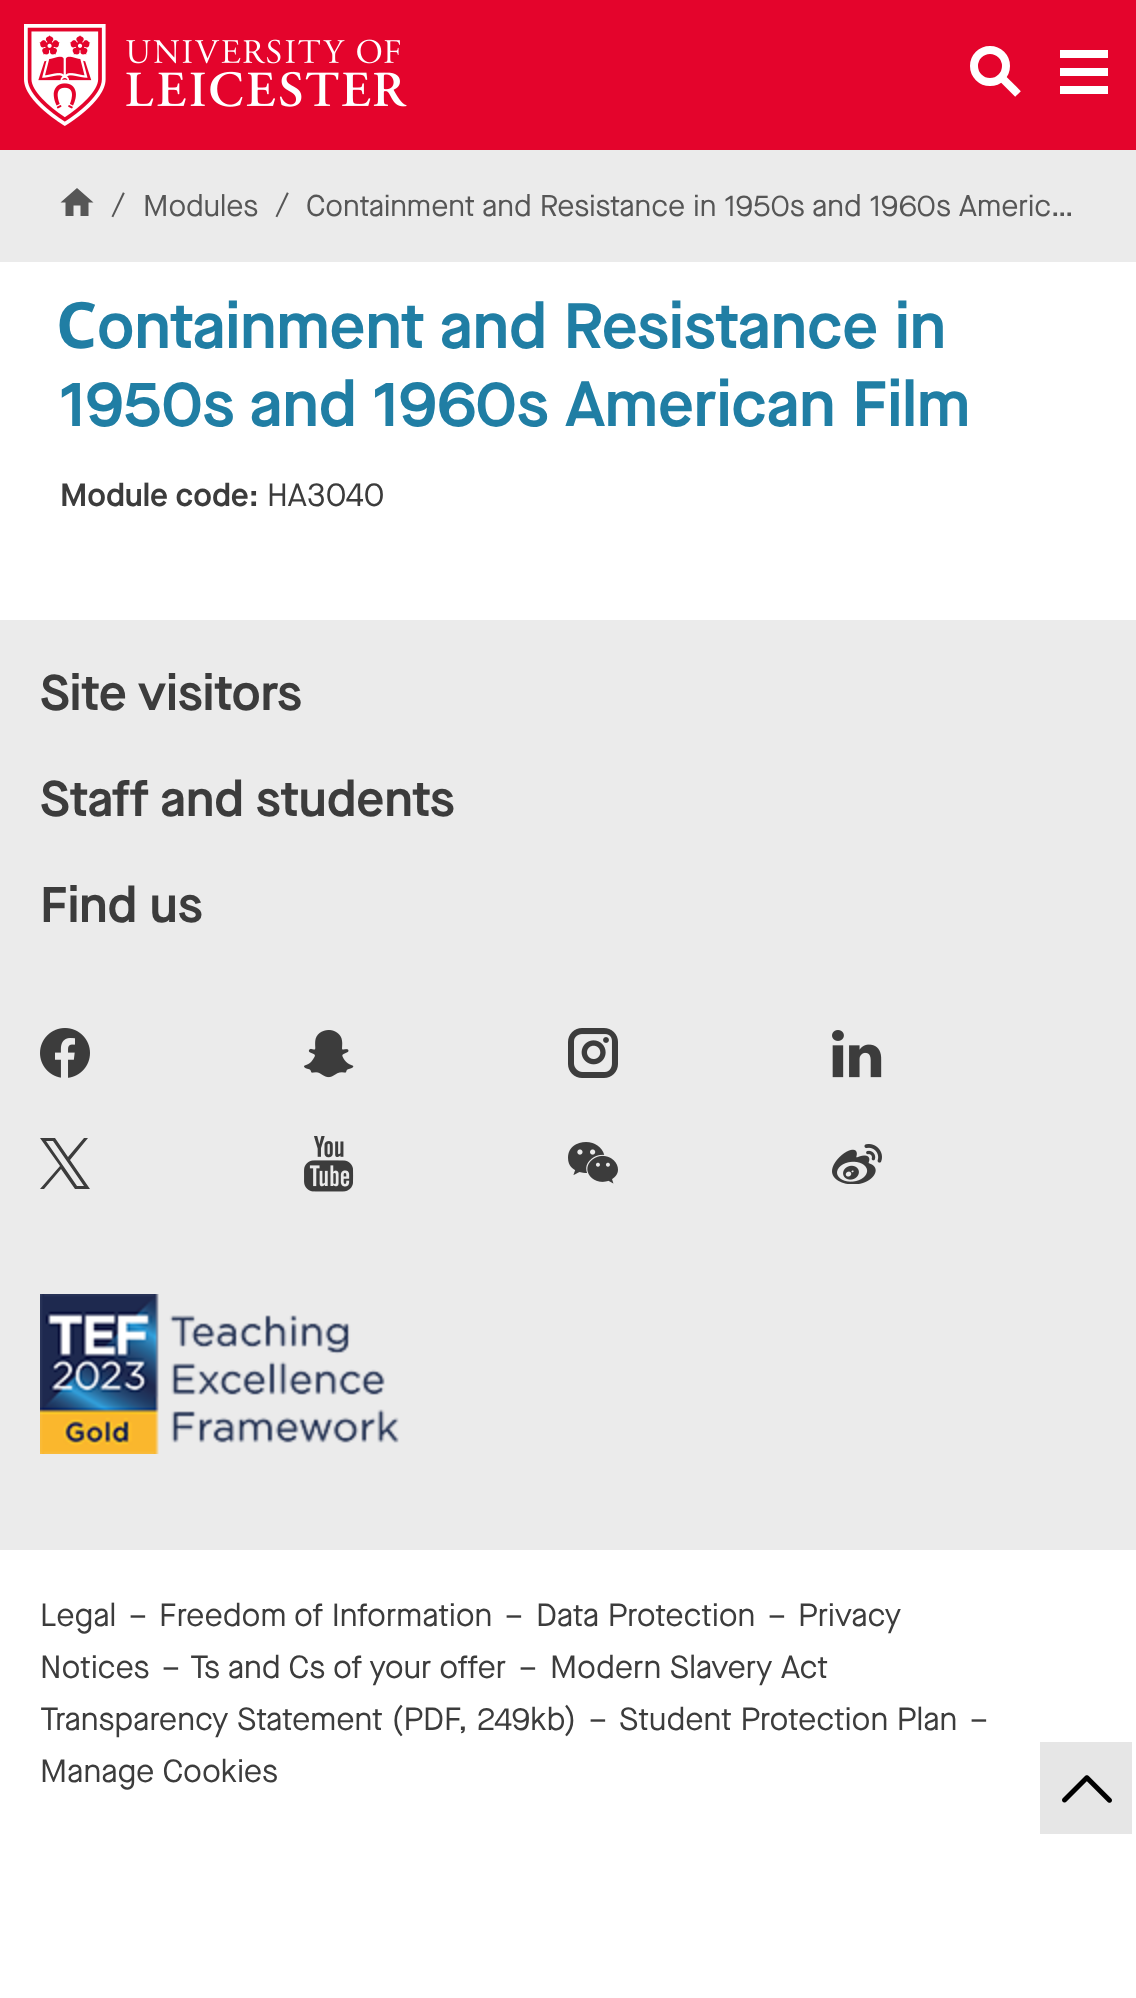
<?xml version="1.0" encoding="UTF-8"?>
<svg xmlns="http://www.w3.org/2000/svg" xmlns:xlink="http://www.w3.org/1999/xlink" width="1136" height="1998">
  <rect width="100%" height="100%" fill="#ffffff" />
  <rect width="1136" height="150" fill="#e4042c" />
  <image x="24" y="24" width="383" height="102" xlink:href="image1.png" />
  <path d="M 1002 78 l 16 16" fill="none" stroke="#ffffff" stroke-width="8" />
  <circle cx="990" cy="66" r="16" fill="none" stroke="#ffffff" stroke-width="8" />
  <rect x="1060" y="50" width="48" height="8" fill="#ffffff" />
  <rect x="1060" y="68" width="48" height="8" fill="#ffffff" />
  <rect x="1060" y="86" width="48" height="8" fill="#ffffff" />
  <rect y="150" width="1136" height="112" fill="#ebebeb" />
  <path d="M 77 188 l -16.5 14.5 h 5 v 13.5 h 8 v -10.5 h 7 v 10.5 h 8 v -13.5 h 5 z" fill="#565656" />
  <rect y="620" width="1136" height="930" fill="#ebebeb" />
  <image x="40" y="1028" width="50" height="50" xlink:href="image2.png" />
  <image x="304" y="1030" width="50" height="48" xlink:href="image3.png" />
  <image x="568" y="1028" width="50" height="50" xlink:href="image4.png" />
  <image x="832" y="1030" width="50" height="48" xlink:href="image5.png" />
  <path d="M 70 1160 l 18 -22 h -4 l -16 19 l -13 -19 h -15 l 20 28 l -20 23 h 4 l 17 -20 l 14 20 h 15 z m -6 7 l -18 -26 h 7 l 31 45 h -7 z" fill="#3c3c3c" />
  <image x="304" y="1136" width="50" height="56" xlink:href="image6.png" />
  <image x="568" y="1142" width="50" height="42" xlink:href="image7.png" />
  <image x="832" y="1144" width="50" height="40" xlink:href="image8.png" />
  <image x="40" y="1294" width="359" height="160" xlink:href="image9.png" />
  <rect x="1040" y="1742" width="92" height="92" fill="#e6e6e6" />
  <image x="1062" y="1775" width="50" height="28" xlink:href="image10.png" />
  <text x="111" y="216" style="font-family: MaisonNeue; font-size: 32px; fill: #565656">/</text>
  <text x="143" y="216" style="font-family: MaisonNeue; font-size: 30px; fill: #565656">Modules</text>
  <text x="275" y="216" style="font-family: MaisonNeue; font-size: 32px; fill: #565656">/</text>
  <text x="306" y="216" style="font-family: MaisonNeue; font-size: 30px; fill: #565656">Containment and Resistance in 1950s and 1960s Americ…</text>
  <text x="56" y="348" style="font-family: Noto Sans; font-size: 64px; font-weight: bold; fill: #207ea4">C</text>
  <text x="97" y="348" style="font-family: MaisonNeue; font-size: 64px; font-weight: 600; fill: #207ea4">ontainment and Resistance in</text>
  <text x="60" y="426" style="font-family: MaisonNeue; font-size: 64px; font-weight: 600; fill: #207ea4">1950s and 1960s American Film</text>
  <text x="60" y="506" style="font-family: MaisonNeue; font-size: 32px; font-weight: 600; fill: #3c3c3c">Module code:</text>
  <text x="267" y="506" style="font-family: MaisonNeue; font-size: 32px; fill: #3c3c3c">HA3040</text>
  <text x="40" y="710" style="font-family: MaisonNeue; font-size: 50px; font-weight: 600; fill: #3c3c3c">Site visitors</text>
  <text x="40" y="816" style="font-family: MaisonNeue; font-size: 50px; font-weight: 600; fill: #3c3c3c">Staff and students</text>
  <text x="40" y="922" style="font-family: MaisonNeue; font-size: 50px; font-weight: 600; fill: #3c3c3c">Find us</text>
  <text x="40" y="1626" style="font-family: MaisonNeue; font-size: 32px; fill: #3c3c3c">Legal</text>
  <text x="129" y="1626" style="font-family: MaisonNeue; font-size: 32px; fill: #3c3c3c">–</text>
  <text x="159" y="1626" style="font-family: MaisonNeue; font-size: 32px; fill: #3c3c3c">Freedom of Information</text>
  <text x="768" y="1626" style="font-family: MaisonNeue; font-size: 32px; fill: #3c3c3c">–</text>
  <text x="798" y="1626" style="font-family: MaisonNeue; font-size: 32px; fill: #3c3c3c">Privacy</text>
  <text x="40" y="1678" style="font-family: MaisonNeue; font-size: 32px; fill: #3c3c3c">Notices</text>
  <text x="505" y="1626" style="font-family: MaisonNeue; font-size: 32px; fill: #3c3c3c">–</text>
  <text x="536" y="1626" style="font-family: MaisonNeue; font-size: 32px; fill: #3c3c3c">Data Protection</text>
  <text x="519" y="1678" style="font-family: MaisonNeue; font-size: 32px; fill: #3c3c3c">–</text>
  <text x="550" y="1678" style="font-family: MaisonNeue; font-size: 32px; fill: #3c3c3c">Modern Slavery Act</text>
  <text x="40" y="1730" style="font-family: MaisonNeue; font-size: 32px; fill: #3c3c3c">Transparency Statement (PDF, 249kb)</text>
  <text x="162" y="1678" style="font-family: MaisonNeue; font-size: 32px; fill: #3c3c3c">–</text>
  <text x="190" y="1678" style="font-family: MaisonNeue; font-size: 32px; fill: #3c3c3c">Ts and Cs of your offer</text>
  <text x="589" y="1730" style="font-family: MaisonNeue; font-size: 32px; fill: #3c3c3c">–</text>
  <text x="619" y="1730" style="font-family: MaisonNeue; font-size: 32px; fill: #3c3c3c">Student Protection Plan</text>
  <text x="970" y="1730" style="font-family: MaisonNeue; font-size: 32px; fill: #3c3c3c">–</text>
  <text x="40" y="1782" style="font-family: MaisonNeue; font-size: 32px; fill: #3c3c3c">Manage Cookies</text>
</svg>
